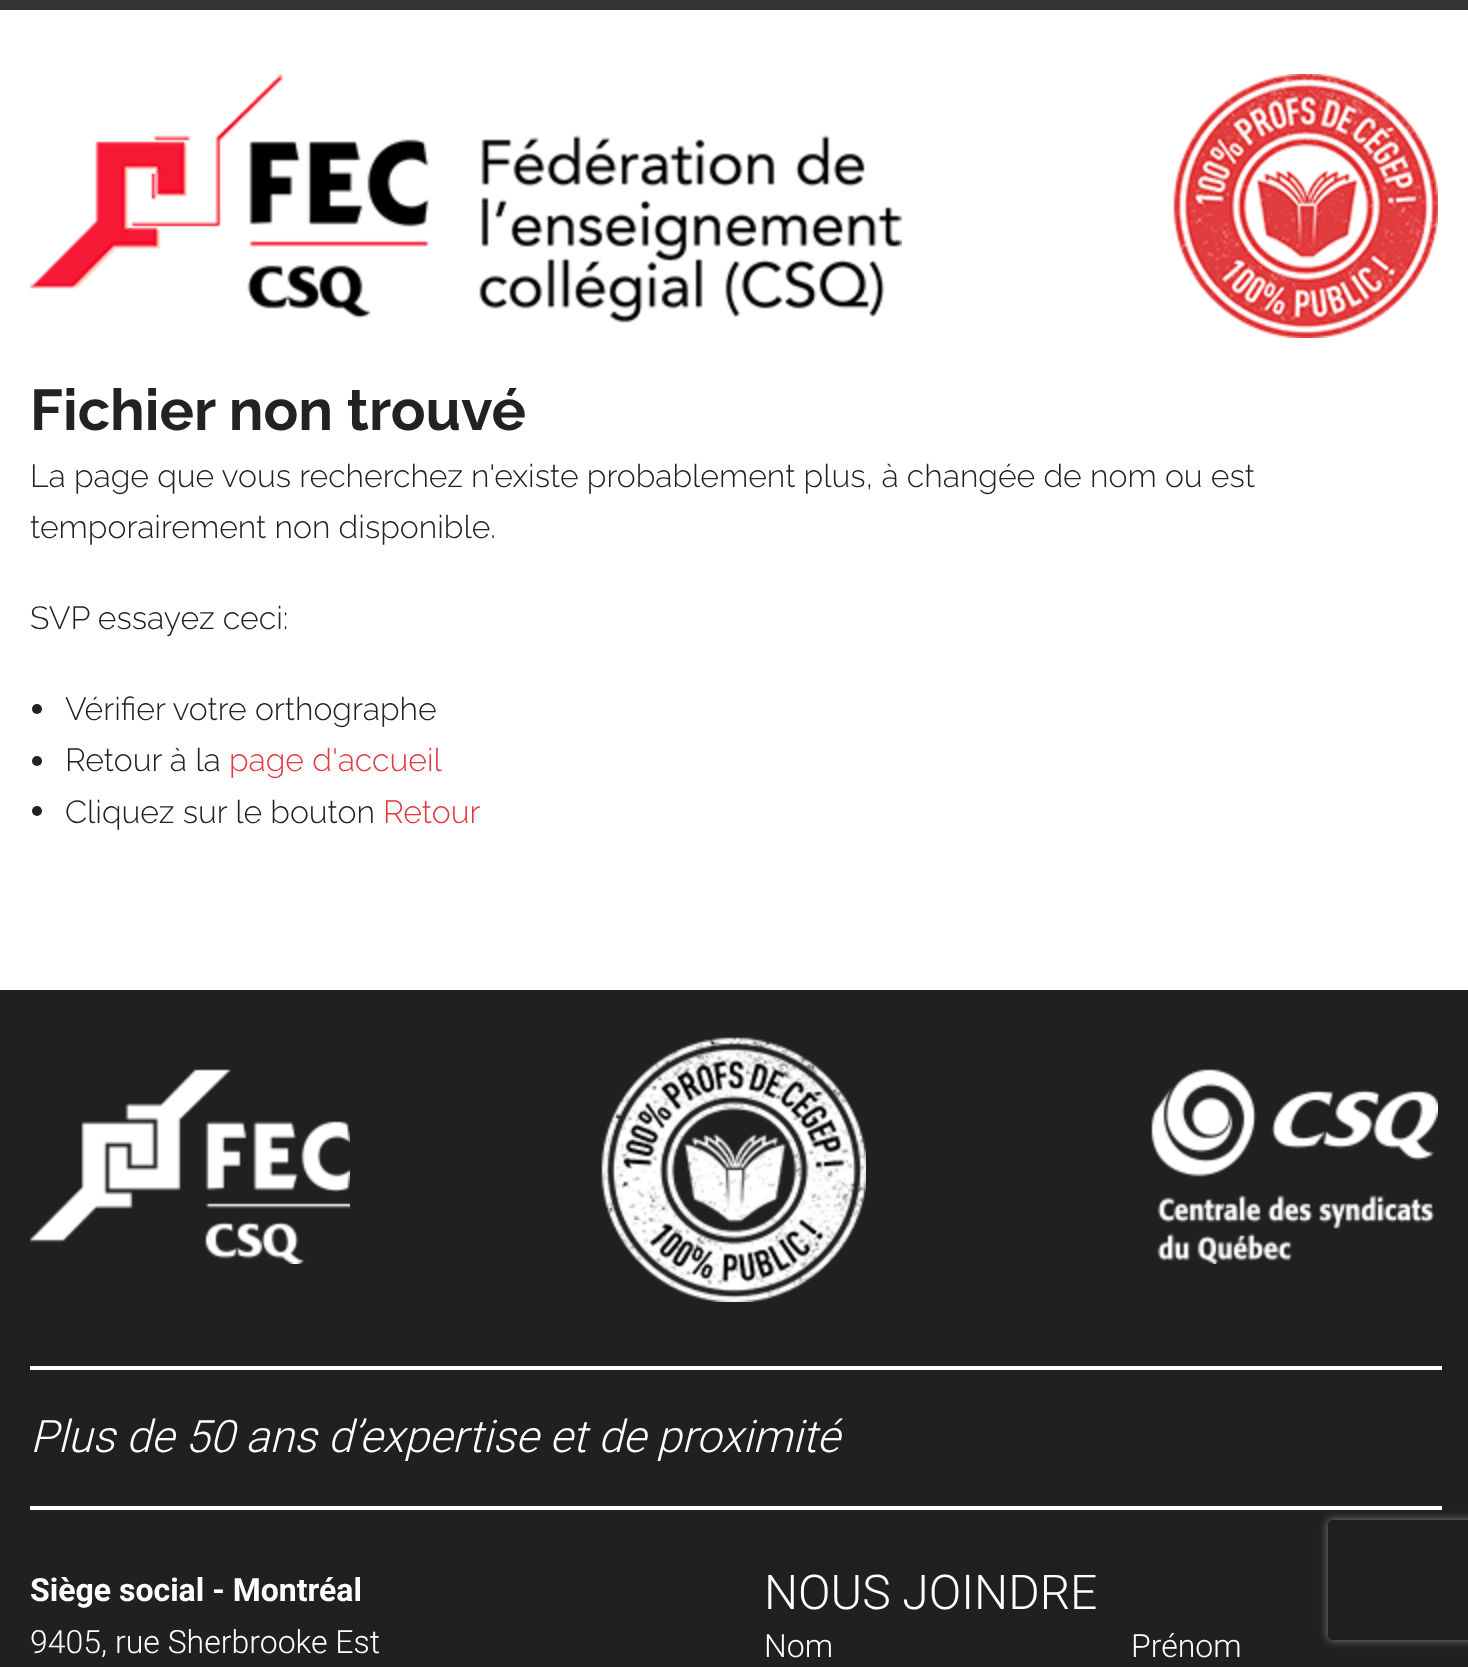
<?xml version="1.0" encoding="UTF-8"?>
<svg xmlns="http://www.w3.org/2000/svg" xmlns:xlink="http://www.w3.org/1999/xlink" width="1468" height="1667">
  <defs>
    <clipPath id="clip1"><path d="M 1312 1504 h 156 v 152 h -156 z m 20 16 h 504 c 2 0 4 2 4 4 v 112 c 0 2 -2 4 -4 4 h -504 c -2 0 -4 -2 -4 -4 v -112 c 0 -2 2 -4 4 -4 z" clip-rule="evenodd" /></clipPath>
  </defs>
  <rect width="100%" height="100%" fill="#ffffff" />
  <rect width="1468" height="10" fill="#333333" />
  <image x="30" y="74" width="872" height="249" xlink:href="image1.png" />
  <image x="1173" y="74" width="265" height="264" xlink:href="image2.png" />
  <circle cx="37" cy="709" r="5" fill="#222222" />
  <circle cx="37" cy="761" r="5" fill="#222222" />
  <circle cx="37" cy="811" r="5" fill="#222222" />
  <rect y="990" width="1468" height="677" fill="#221f1f" />
  <image x="30" y="1069" width="320" height="195" xlink:href="image3.png" />
  <image x="601" y="1037" width="265" height="265" xlink:href="image4.png" />
  <image x="1151" y="1069" width="287" height="195" xlink:href="image5.png" />
  <rect x="30" y="1366" width="1412" height="4" fill="#ffffff" />
  <rect x="30" y="1506" width="1412" height="4" fill="#ffffff" />
  <g clip-path="url(#clip1)">
    <rect x="1328" y="1520" width="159" height="120" rx="4" fill="#808080" filter="blur(5px)" />
  </g>
  <text x="30" y="430" style="font-family: Raleway; font-size: 57.5px; font-weight: bold; fill: #222222">Fichier non trouvé</text>
  <text x="30" y="487" style="font-family: Raleway; font-size: 32px; font-weight: 300; fill: #222222">La page que vous recherchez n'existe probablement plus, à changée de nom ou est</text>
  <text x="30" y="538" style="font-family: Raleway; font-size: 32px; font-weight: 300; fill: #222222">temporairement non disponible.</text>
  <text x="30" y="629" style="font-family: Raleway; font-size: 32px; font-weight: 300; fill: #222222">SVP essayez ceci:</text>
  <text x="65" y="720" style="font-family: Raleway; font-size: 32px; font-weight: 300; fill: #222222">Vérifier votre orthographe</text>
  <text x="65" y="771" style="font-family: Raleway; font-size: 32px; font-weight: 300; fill: #222222">Retour à la</text>
  <text x="229" y="771" style="font-family: Raleway; font-size: 32px; font-weight: 300; fill: #e2383f">page d'accueil</text>
  <text x="65" y="823" style="font-family: Raleway; font-size: 32px; font-weight: 300; fill: #222222">Cliquez sur le bouton</text>
  <text x="383" y="823" style="font-family: Raleway; font-size: 32px; font-weight: 300; fill: #e2383f">Retour</text>
  <text x="30" y="1452" style="font-family: Roboto; font-size: 44.75px; font-weight: 300; font-style: italic; fill: #ffffff">Plus de 50 ans d’expertise et de proximité</text>
  <text x="30" y="1601" style="font-family: Roboto; font-size: 32px; font-weight: bold; fill: #ffffff">Siège social - Montréal</text>
  <text x="30" y="1653" style="font-family: Roboto; font-size: 32px; font-weight: 300; fill: #ffffff">9405, rue Sherbrooke Est</text>
  <text x="764" y="1609" style="font-family: Roboto; font-size: 48px; font-weight: 300; fill: #ffffff">NOUS JOINDRE</text>
  <text x="764" y="1657" style="font-family: Roboto; font-size: 32px; font-weight: 300; fill: #ffffff">Nom</text>
  <text x="1131" y="1657" style="font-family: Roboto; font-size: 32px; font-weight: 300; fill: #ffffff">Prénom</text>
</svg>
